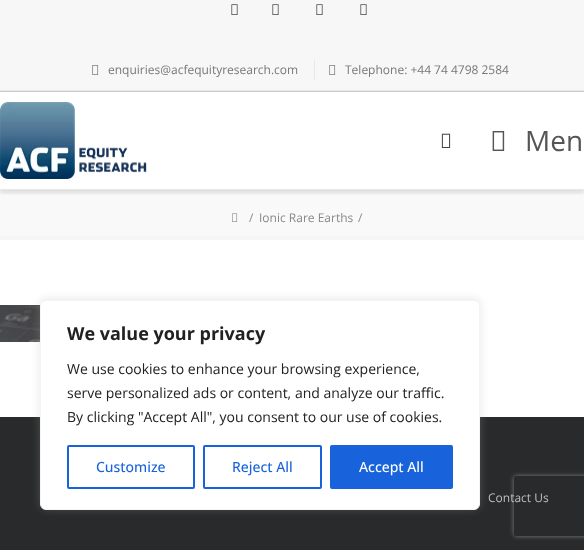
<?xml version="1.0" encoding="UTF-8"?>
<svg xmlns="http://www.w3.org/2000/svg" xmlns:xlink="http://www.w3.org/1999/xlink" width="584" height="550">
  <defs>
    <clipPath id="clip1"><rect x="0" y="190" width="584" height="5" /></clipPath>
    <clipPath id="clip2"><path d="M 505 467 h 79 v 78 h -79 z m 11 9 h 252 c 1 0 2 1 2 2 v 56 c 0 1 -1 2 -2 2 h -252 c -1 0 -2 -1 -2 -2 v -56 c 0 -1 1 -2 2 -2 z" clip-rule="evenodd" /></clipPath>
  </defs>
  <rect width="100%" height="100%" fill="#ffffff" />
  <rect width="584" height="90" fill="#f7f7f7" />
  <rect y="90" width="584" height="1" fill="#e8e8e8" />
  <image x="231" y="4" width="7" height="11" xlink:href="image1.png" />
  <image x="272" y="4" width="7" height="11" xlink:href="image1.png" />
  <image x="316" y="4" width="7" height="11" xlink:href="image1.png" />
  <image x="360" y="4" width="7" height="11" xlink:href="image1.png" />
  <image x="92" y="65" width="7" height="10" xlink:href="image2.png" />
  <rect x="314" y="60" width="1" height="20" fill="#e8e8e8" />
  <image x="329" y="65" width="7" height="10" xlink:href="image2.png" />
  <rect y="190" width="584" height="50" fill="#f6f6f6" />
  <rect y="193" width="584" height="43" fill="#f9f9f9" />
  <g clip-path="url(#clip1)">
    <rect y="94" width="584" height="99" fill="#000000" fill-opacity="0.1" filter="blur(2.5px)" />
  </g>
  <rect y="91" width="584" height="1" fill="#cccccc" />
  <rect y="189" width="584" height="1" fill="#e8e8e8" />
  <image x="0" y="102" width="147" height="77" xlink:href="image3.png" />
  <image x="441" y="133" width="10" height="15" xlink:href="image4.png" />
  <image x="492" y="131" width="13" height="20" xlink:href="image5.png" />
  <image x="232" y="213" width="6" height="9" xlink:href="image6.png" />
  <image x="0" y="305" width="41" height="37" xlink:href="image7.png" />
  <rect y="417" width="584" height="133" fill="#282a2b" />
  <rect x="40" y="299" width="440" height="210" rx="6" fill="#acabab" fill-opacity="0.3" filter="blur(5px)" />
  <rect x="40.5" y="300.5" width="439" height="209" rx="5.5" fill="#ffffff" stroke="#f4f4f4" />
  <rect x="68" y="446" width="126" height="42" rx="1" fill="none" stroke="#1863dc" stroke-width="2" />
  <rect x="204" y="446" width="117" height="42" rx="1" fill="none" stroke="#1863dc" stroke-width="2" />
  <rect x="331" y="446" width="121" height="42" rx="1" fill="#1863dc" stroke="#1863dc" stroke-width="2" />
  <g clip-path="url(#clip2)">
    <rect x="514" y="476" width="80" height="60" rx="2" fill="#808080" filter="blur(2.5px)" />
  </g>
  <text x="108" y="74" style="font-family: Open Sans; font-size: 12px; fill: #777777">enquiries@acfequityresearch.com</text>
  <text x="345" y="74" style="font-family: Open Sans; font-size: 12px; fill: #777777">Telephone: +44 74 4798 2584</text>
  <text x="525" y="151" style="font-family: Open Sans; font-size: 28px; fill: #555555">Men</text>
  <text x="249" y="222" style="font-family: Open Sans; font-size: 12px; fill: #888888">/</text>
  <text x="259" y="222" style="font-family: Open Sans; font-size: 12px; fill: #888888">Ionic Rare Earths</text>
  <text x="358" y="222" style="font-family: Open Sans; font-size: 12px; fill: #888888">/</text>
  <text x="67" y="340" style="font-family: Open Sans; font-size: 18px; font-weight: bold; fill: #212121">We value your privacy</text>
  <text x="67" y="374" style="font-family: Open Sans; font-size: 14px; fill: #212121">We use cookies to enhance your browsing experience,</text>
  <text x="67" y="398" style="font-family: Open Sans; font-size: 14px; fill: #212121">serve personalized ads or content, and analyze our traffic.</text>
  <text x="67" y="422" style="font-family: Open Sans; font-size: 14px; fill: #212121">By clicking "Accept All", you consent to our use of cookies.</text>
  <text x="96" y="472" style="font-family: Open Sans; font-size: 14px; font-weight: 500; fill: #1863dc">Customize</text>
  <text x="232" y="472" style="font-family: Open Sans; font-size: 14px; font-weight: 500; fill: #1863dc">Reject All</text>
  <text x="359" y="472" style="font-family: Open Sans; font-size: 14px; font-weight: 500; fill: #ffffff">Accept All</text>
  <text x="488" y="502" style="font-family: Open Sans; font-size: 12px; fill: #bfbfbf">Contact Us</text>
</svg>
